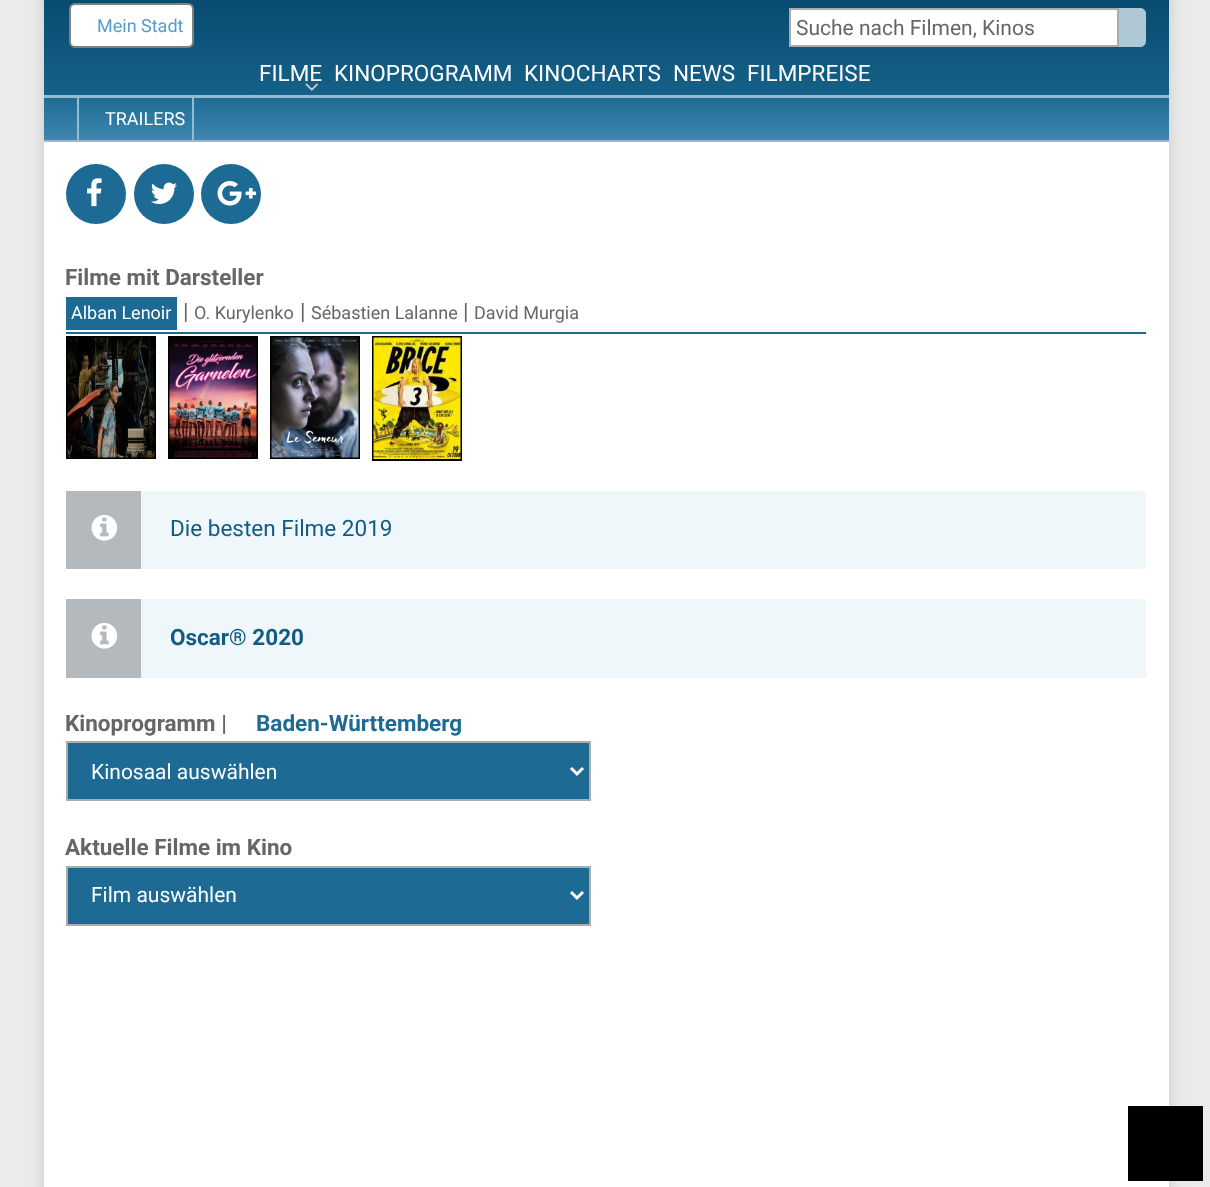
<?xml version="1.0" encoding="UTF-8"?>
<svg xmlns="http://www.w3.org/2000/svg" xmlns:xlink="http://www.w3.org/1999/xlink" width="1210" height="1187">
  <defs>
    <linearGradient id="g1" gradientUnits="userSpaceOnUse" x1="606" y1="0" x2="606" y2="140"><stop offset="0" stop-color="#074b6f" /><stop offset="1" stop-color="#1d6b95" /></linearGradient>
    <linearGradient id="g2" gradientUnits="userSpaceOnUse" x1="606" y1="96" x2="606" y2="140"><stop offset="0" stop-color="#1d6b95" /><stop offset="1" stop-color="#3e87ae" /></linearGradient>
  </defs>
  <rect width="100%" height="100%" fill="#ebebeb" />
  <rect x="44" y="-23" width="1125" height="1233" fill="#cacaca" filter="blur(7.5px)" />
  <rect x="44" y="142" width="1125" height="1045" fill="#ffffff" />
  <rect x="44" width="1125" height="95" fill="url(#g1)" />
  <rect x="44" y="140" width="1125" height="2" fill="#94bcd1" />
  <rect x="70" y="4" width="123" height="43" rx="5" fill="#ffffff" stroke="#808080" stroke-width="2" />
  <rect x="790" y="9" width="328" height="37" fill="#ffffff" stroke="#acacac" stroke-width="2" />
  <path d="M 1119 8 h 21 c 3.5 0 6 2.5 6 6 v 27 c 0 3.5 -2.5 6 -6 6 h -21 z" fill="#aec8d6" />
  <image x="305" y="83" width="13" height="8" xlink:href="image1.png" />
  <rect x="44" y="95" width="1125" height="3" fill="#94bcd1" />
  <rect x="44" y="98" width="1125" height="42" fill="url(#g2)" />
  <rect x="77" y="98" width="2" height="42" fill="#94bcd1" />
  <rect x="192" y="98" width="2" height="42" fill="#94bcd1" />
  <circle cx="96" cy="194" r="30" fill="#1d6b95" />
  <image x="87" y="178" width="15" height="29" xlink:href="image2.png" />
  <circle cx="164" cy="194" r="30" fill="#1d6b95" />
  <image x="151" y="182" width="26" height="22" xlink:href="image3.png" />
  <circle cx="231" cy="194" r="30" fill="#1d6b95" />
  <image x="217" y="181" width="40" height="25" xlink:href="image4.png" />
  <rect x="66" y="332" width="1080" height="2" fill="#1d6b95" />
  <rect x="66" y="297" width="111" height="33" fill="#1d6b95" />
  <rect x="67" y="337" width="88" height="121" fill="none" stroke="#000000" stroke-width="2" />
  <image x="67" y="337" width="88" height="121" xlink:href="image5.png" />
  <rect x="169" y="337" width="88" height="121" fill="none" stroke="#000000" stroke-width="2" />
  <image x="169" y="338" width="88" height="120" xlink:href="image6.png" />
  <rect x="271" y="337" width="88" height="121" fill="none" stroke="#000000" stroke-width="2" />
  <image x="271" y="337" width="88" height="121" xlink:href="image7.png" />
  <rect x="373" y="337" width="88" height="123" fill="none" stroke="#000000" stroke-width="2" />
  <image x="373" y="337" width="88" height="122" xlink:href="image8.png" />
  <rect x="141" y="491" width="1005" height="78" fill="#eff7fb" />
  <rect x="66" y="491" width="75" height="78" fill="#b3b9bc" />
  <image x="91" y="515" width="27" height="26" xlink:href="image9.png" />
  <rect x="141" y="599" width="1005" height="79" fill="#eff7fb" />
  <rect x="66" y="599" width="75" height="79" fill="#b3b9bc" />
  <image x="91" y="623" width="27" height="26" xlink:href="image9.png" />
  <rect x="67" y="742" width="523" height="58" fill="#1d6b95" stroke="#acacac" stroke-width="2" />
  <path d="M 571 768 l 6 6 l 6 -6" fill="none" stroke="#ffffff" stroke-width="3" />
  <rect x="67" y="867" width="523" height="58" fill="#1d6b95" stroke="#acacac" stroke-width="2" />
  <path d="M 571 892 l 6 6 l 6 -6" fill="none" stroke="#ffffff" stroke-width="3" />
  <rect x="1128" y="1106" width="75" height="75" fill="#000000" />
  <text x="97" y="32" style="font-family: Roboto; font-size: 18px; fill: #559bcc">Mein Stadt</text>
  <text x="796" y="35" style="font-family: Roboto; font-size: 21px; fill: #666666">Suche nach Filmen, Kinos</text>
  <text x="259" y="81" style="font-family: Roboto; font-size: 22.5px; fill: #ffffff">FILME</text>
  <text x="334" y="81" style="font-family: Roboto; font-size: 22.5px; fill: #ffffff">KINOPROGRAMM</text>
  <text x="524" y="81" style="font-family: Roboto; font-size: 22.5px; fill: #ffffff">KINOCHARTS</text>
  <text x="673" y="81" style="font-family: Roboto; font-size: 22.5px; fill: #ffffff">NEWS</text>
  <text x="747" y="81" style="font-family: Roboto; font-size: 22.5px; fill: #ffffff">FILMPREISE</text>
  <text x="105" y="125" style="font-family: Roboto; font-size: 18px; fill: #ffffff">TRAILERS</text>
  <text x="65" y="285" style="font-family: Roboto; font-size: 22.5px; font-weight: bold; fill: #666666">Filme mit Darsteller</text>
  <text x="71" y="319" style="font-family: Roboto; font-size: 18px; fill: #ffffff">Alban Lenoir</text>
  <text x="183" y="319" style="font-family: Roboto; font-size: 22.5px; fill: #666666">|</text>
  <text x="194" y="319" style="font-family: Roboto; font-size: 18px; fill: #666666">O. Kurylenko</text>
  <text x="300" y="319" style="font-family: Roboto; font-size: 22.5px; fill: #666666">|</text>
  <text x="311" y="319" style="font-family: Roboto; font-size: 18px; fill: #666666">Sébastien Lalanne</text>
  <text x="463" y="319" style="font-family: Roboto; font-size: 22.5px; fill: #666666">|</text>
  <text x="474" y="319" style="font-family: Roboto; font-size: 18px; fill: #666666">David Murgia</text>
  <text x="170" y="536" style="font-family: Roboto; font-size: 22.5px; fill: #125c83">Die besten Filme 2019</text>
  <text x="170" y="645" style="font-family: Roboto; font-size: 22.5px; font-weight: bold; fill: #125c83">Oscar® 2020</text>
  <text x="65" y="731" style="font-family: Roboto; font-size: 22.5px; font-weight: bold; fill: #666666">Kinoprogramm |</text>
  <text x="256" y="731" style="font-family: Roboto; font-size: 22.5px; font-weight: bold; fill: #1d6b95">Baden-Württemberg</text>
  <text x="91" y="779" style="font-family: Roboto; font-size: 21px; fill: #ffffff">Kinosaal auswählen</text>
  <text x="65" y="855" style="font-family: Roboto; font-size: 22.5px; font-weight: bold; fill: #666666">Aktuelle Filme im Kino</text>
  <text x="91" y="902" style="font-family: Roboto; font-size: 21px; fill: #ffffff">Film auswählen</text>
</svg>
